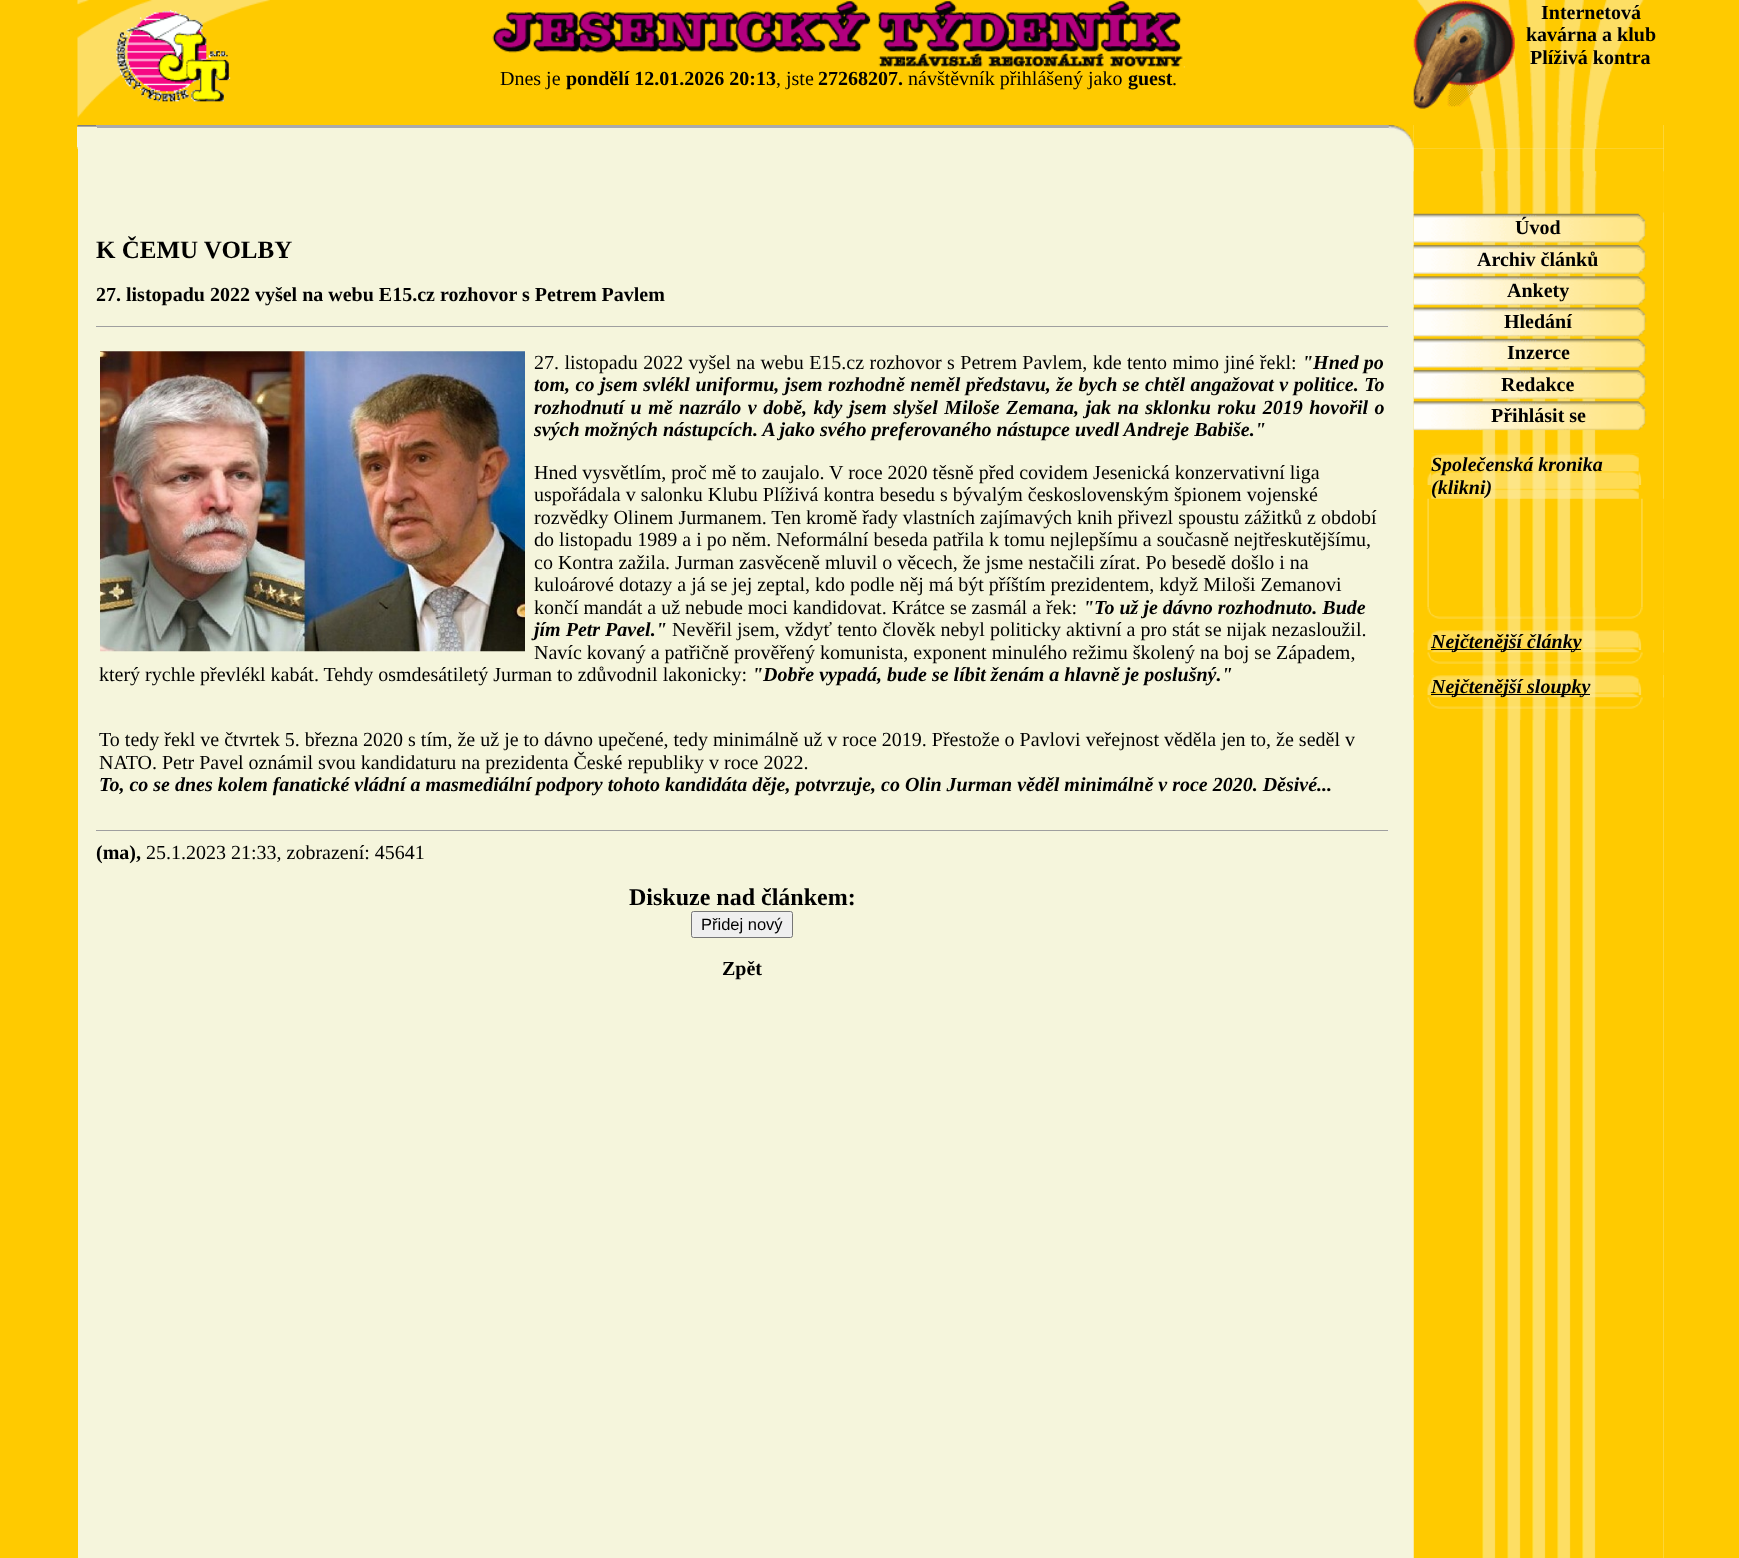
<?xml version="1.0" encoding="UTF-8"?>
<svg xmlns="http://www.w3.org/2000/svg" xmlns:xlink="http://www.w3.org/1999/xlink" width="1739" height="1558">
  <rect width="100%" height="100%" fill="#ffca00" />
  <image x="77" y="0" width="193" height="118" xlink:href="image1.png" />
  <image x="116" y="9" width="115" height="93" xlink:href="image2.png" />
  <image x="492" y="1" width="693" height="67" xlink:href="image3.png" />
  <image x="1416" y="0" width="228" height="125" xlink:href="image4.png" />
  <image x="1413" y="1" width="102" height="108" xlink:href="image5.png" />
  <rect x="78" y="125" width="1586" height="1433" fill="#f5f5dc" />
  <image x="77" y="125" width="20" height="24" xlink:href="image6.png" />
  <rect x="96" y="125" width="1293" height="3" fill="#aaaaaa" />
  <rect x="77" y="127" width="20" height="20" fill="#f5f5dc" />
  <image x="1413" y="148" width="251" height="1410" xlink:href="image10.png" />
  <image x="1388" y="125" width="26" height="24" xlink:href="image7.png" />
  <image x="1413" y="125" width="251" height="24" xlink:href="image8.png" />
  <rect x="96" y="326" width="1293" height="1" fill="#9f9f9f" />
  <rect x="1388" y="326" width="1" height="1" fill="#eeeeee" />
  <image x="100" y="351" width="425" height="301" xlink:href="image9.png" />
  <rect x="96" y="830" width="1293" height="1" fill="#9f9f9f" />
  <rect x="1388" y="830" width="1" height="1" fill="#eeeeee" />
  <rect x="691.5" y="911.5" width="101" height="26" rx="2" fill="#efefef" stroke="#767676" />
  <image x="1413" y="171" width="251" height="42" xlink:href="image11.png" />
  <image x="1413" y="213" width="234" height="30" xlink:href="image12.png" />
  <image x="1413" y="244" width="234" height="30" xlink:href="image13.png" />
  <image x="1413" y="276" width="234" height="30" xlink:href="image14.png" />
  <image x="1413" y="307" width="234" height="30" xlink:href="image15.png" />
  <image x="1413" y="338" width="234" height="30" xlink:href="image12.png" />
  <image x="1413" y="369" width="234" height="30" xlink:href="image13.png" />
  <image x="1413" y="401" width="234" height="30" xlink:href="image16.png" />
  <image x="1431" y="453" width="208" height="46" xlink:href="image18.png" />
  <image x="1413" y="467" width="19" height="18" xlink:href="image17.png" />
  <image x="1638" y="467" width="4" height="18" xlink:href="image19.png" />
  <image x="1413" y="498" width="16" height="110" xlink:href="image20.png" />
  <image x="1641" y="498" width="23" height="110" xlink:href="image21.png" />
  <image x="1413" y="607" width="19" height="23" xlink:href="image22.png" />
  <image x="1431" y="607" width="208" height="23" xlink:href="image23.png" />
  <image x="1638" y="607" width="26" height="23" xlink:href="image24.png" />
  <image x="1431" y="630" width="208" height="23" xlink:href="image26.png" />
  <image x="1413" y="632" width="19" height="18" xlink:href="image25.png" />
  <rect x="1431" y="649" width="150" height="1" fill="#000000" />
  <image x="1638" y="633" width="4" height="17" xlink:href="image27.png" />
  <image x="1431" y="675" width="208" height="23" xlink:href="image31.png" />
  <image x="1413" y="677" width="19" height="18" xlink:href="image25.png" />
  <rect x="1431" y="694" width="159" height="1" fill="#000000" />
  <image x="1638" y="678" width="4" height="17" xlink:href="image27.png" />
  <text x="500" y="85" style="font-family: Liberation Serif; font-size: 20px; fill: #000000">Dnes je</text>
  <text x="566" y="85" style="font-family: Liberation Serif; font-size: 20px; font-weight: bold; fill: #000000">pondělí 12.01.2026 20:13</text>
  <text x="776" y="85" style="font-family: Liberation Serif; font-size: 20px; fill: #000000">, jste</text>
  <text x="818" y="85" style="font-family: Liberation Serif; font-size: 20px; font-weight: bold; fill: #000000">27268207.</text>
  <text x="908" y="85" style="font-family: Liberation Serif; font-size: 20px; fill: #000000">návštěvník přihlášený jako</text>
  <text x="1128" y="85" style="font-family: Liberation Serif; font-size: 20px; font-weight: bold; fill: #000000">guest</text>
  <text x="1172" y="85" style="font-family: Liberation Serif; font-size: 20px; fill: #000000">.</text>
  <text x="1541" y="19" style="font-family: Liberation Serif; font-size: 20px; font-weight: bold; fill: #000000">Internetová</text>
  <text x="1526" y="41" style="font-family: Liberation Serif; font-size: 20px; font-weight: bold; fill: #000000">kavárna a klub</text>
  <text x="1530" y="64" style="font-family: Liberation Serif; font-size: 20px; font-weight: bold; fill: #000000">Plíživá kontra</text>
  <text x="96" y="258" style="font-family: Liberation Serif; font-size: 25px; font-weight: bold; fill: #000000">K ČEMU VOLBY</text>
  <text x="96" y="301" style="font-family: Liberation Serif; font-size: 20px; font-weight: bold; fill: #000000">27. listopadu 2022 vyšel na webu E15.cz rozhovor s Petrem Pavlem</text>
  <text x="534" y="369" word-spacing="0.4" style="font-family: Liberation Serif; font-size: 20px; fill: #000000">27. listopadu 2022 vyšel na webu E15.cz rozhovor s Petrem Pavlem, kde tento mimo jiné řekl:</text>
  <text x="1302" y="369" style="font-family: Liberation Serif; font-size: 20px; font-weight: bold; font-style: italic; fill: #000000">"Hned po</text>
  <text x="534" y="391" word-spacing="0.5" style="font-family: Liberation Serif; font-size: 20px; font-weight: bold; font-style: italic; fill: #000000">tom, co jsem svlékl uniformu, jsem rozhodně neměl představu, že bych se chtěl angažovat v politice. To</text>
  <text x="534" y="414" word-spacing="1.5" style="font-family: Liberation Serif; font-size: 20px; font-weight: bold; font-style: italic; fill: #000000">rozhodnutí u mě nazrálo v době, kdy jsem slyšel Miloše Zemana, jak na sklonku roku 2019 hovořil o</text>
  <text x="534" y="436" style="font-family: Liberation Serif; font-size: 20px; font-weight: bold; font-style: italic; fill: #000000">svých možných nástupcích. A jako svého preferovaného nástupce uvedl Andreje Babiše."</text>
  <text x="534" y="479" style="font-family: Liberation Serif; font-size: 20px; fill: #000000">Hned vysvětlím, proč mě to zaujalo. V roce 2020 těsně před covidem Jesenická konzervativní liga</text>
  <text x="534" y="501" style="font-family: Liberation Serif; font-size: 20px; fill: #000000">uspořádala v salonku Klubu Plíživá kontra besedu s bývalým československým špionem vojenské</text>
  <text x="534" y="524" style="font-family: Liberation Serif; font-size: 20px; fill: #000000">rozvědky Olinem Jurmanem. Ten kromě řady vlastních zajímavých knih přivezl spoustu zážitků z období</text>
  <text x="534" y="546" style="font-family: Liberation Serif; font-size: 20px; fill: #000000">do listopadu 1989 a i po něm. Neformální beseda patřila k tomu nejlepšímu a současně nejtřeskutějšímu,</text>
  <text x="534" y="569" style="font-family: Liberation Serif; font-size: 20px; fill: #000000">co Kontra zažila. Jurman zasvěceně mluvil o věcech, že jsme nestačili zírat. Po besedě došlo i na</text>
  <text x="534" y="591" style="font-family: Liberation Serif; font-size: 20px; fill: #000000">kuloárové dotazy a já se jej zeptal, kdo podle něj má být příštím prezidentem, když Miloši Zemanovi</text>
  <text x="534" y="614" style="font-family: Liberation Serif; font-size: 20px; fill: #000000">končí mandát a už nebude moci kandidovat. Krátce se zasmál a řek:</text>
  <text x="1083" y="614" style="font-family: Liberation Serif; font-size: 20px; font-weight: bold; font-style: italic; fill: #000000">"To už je dávno rozhodnuto. Bude</text>
  <text x="534" y="636" style="font-family: Liberation Serif; font-size: 20px; font-weight: bold; font-style: italic; fill: #000000">jím Petr Pavel."</text>
  <text x="672" y="636" style="font-family: Liberation Serif; font-size: 20px; fill: #000000">Nevěřil jsem, vždyť tento člověk nebyl politicky aktivní a pro stát se nijak nezasloužil.</text>
  <text x="534" y="659" style="font-family: Liberation Serif; font-size: 20px; fill: #000000">Navíc kovaný a patřičně prověřený komunista, exponent minulého režimu školený na boj se Západem,</text>
  <text x="99" y="681" style="font-family: Liberation Serif; font-size: 20px; fill: #000000">který rychle převlékl kabát. Tehdy osmdesátiletý Jurman to zdůvodnil lakonicky:</text>
  <text x="752" y="681" style="font-family: Liberation Serif; font-size: 20px; font-weight: bold; font-style: italic; fill: #000000">"Dobře vypadá, bude se líbit ženám a hlavně je poslušný."</text>
  <text x="99" y="746" style="font-family: Liberation Serif; font-size: 20px; fill: #000000">To tedy řekl ve čtvrtek 5. března 2020 s tím, že už je to dávno upečené, tedy minimálně už v roce 2019. Přestože o Pavlovi veřejnost věděla jen to, že seděl v</text>
  <text x="99" y="769" style="font-family: Liberation Serif; font-size: 20px; fill: #000000">NATO. Petr Pavel oznámil svou kandidaturu na prezidenta České republiky v roce 2022.</text>
  <text x="99" y="791" style="font-family: Liberation Serif; font-size: 20px; font-weight: bold; font-style: italic; fill: #000000">To, co se dnes kolem fanatické vládní a masmediální podpory tohoto kandidáta děje, potvrzuje, co Olin Jurman věděl minimálně v roce 2020. Děsivé...</text>
  <text x="96" y="859" style="font-family: Liberation Serif; font-size: 20px; font-weight: bold; fill: #000000">(ma),</text>
  <text x="146" y="859" style="font-family: Liberation Serif; font-size: 20px; fill: #000000">25.1.2023 21:33, zobrazení: 45641</text>
  <text x="629" y="905" style="font-family: Liberation Serif; font-size: 24px; font-weight: bold; fill: #000000">Diskuze nad článkem:</text>
  <text x="701" y="930" style="font-family: Liberation Sans; font-size: 16.5px; fill: #000000">Přidej nový</text>
  <text x="722" y="975" style="font-family: Liberation Serif; font-size: 20px; font-weight: bold; fill: #000000">Zpět</text>
  <text x="1515" y="234" style="font-family: Liberation Serif; font-size: 20px; font-weight: bold; fill: #000000">Úvod</text>
  <text x="1477" y="266" style="font-family: Liberation Serif; font-size: 20px; font-weight: bold; fill: #000000">Archiv článků</text>
  <text x="1507" y="297" style="font-family: Liberation Serif; font-size: 20px; font-weight: bold; fill: #000000">Ankety</text>
  <text x="1504" y="328" style="font-family: Liberation Serif; font-size: 20px; font-weight: bold; fill: #000000">Hledání</text>
  <text x="1507" y="359" style="font-family: Liberation Serif; font-size: 20px; font-weight: bold; fill: #000000">Inzerce</text>
  <text x="1501" y="391" style="font-family: Liberation Serif; font-size: 20px; font-weight: bold; fill: #000000">Redakce</text>
  <text x="1491" y="422" style="font-family: Liberation Serif; font-size: 20px; font-weight: bold; fill: #000000">Přihlásit se</text>
  <text x="1431" y="471" style="font-family: Liberation Serif; font-size: 20px; font-weight: bold; font-style: italic; fill: #000000">Společenská kronika</text>
  <text x="1431" y="494" style="font-family: Liberation Serif; font-size: 20px; font-weight: bold; font-style: italic; fill: #000000">(klikni)</text>
  <text x="1431" y="648" style="font-family: Liberation Serif; font-size: 20px; font-weight: bold; font-style: italic; fill: #000000">Nejčtenější články</text>
  <image x="1413" y="652" width="19" height="23" xlink:href="image28.png" />
  <image x="1431" y="652" width="208" height="23" xlink:href="image29.png" />
  <image x="1638" y="652" width="26" height="23" xlink:href="image30.png" />
  <text x="1431" y="693" style="font-family: Liberation Serif; font-size: 20px; font-weight: bold; font-style: italic; fill: #000000">Nejčtenější sloupky</text>
  <image x="1413" y="697" width="19" height="23" xlink:href="image28.png" />
  <image x="1431" y="697" width="208" height="23" xlink:href="image32.png" />
  <image x="1638" y="697" width="26" height="23" xlink:href="image30.png" />
</svg>
